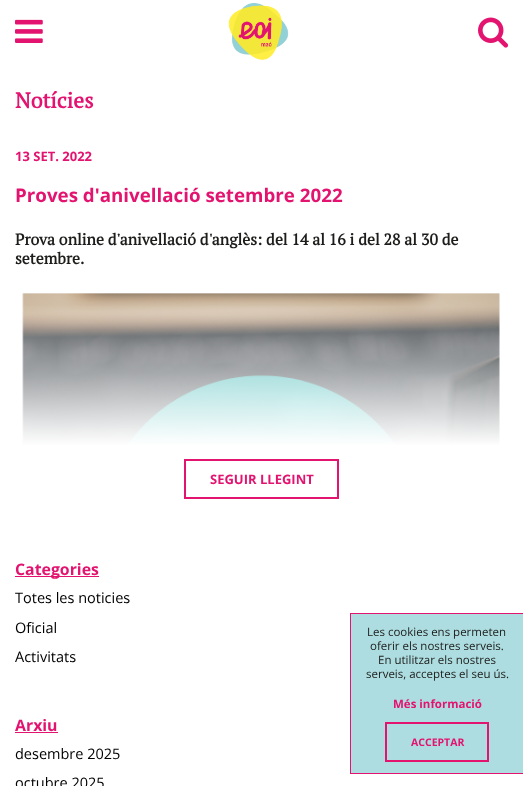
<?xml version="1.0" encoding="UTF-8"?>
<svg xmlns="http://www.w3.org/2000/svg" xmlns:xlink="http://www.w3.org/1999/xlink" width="523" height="786">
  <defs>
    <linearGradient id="g1" gradientUnits="userSpaceOnUse" x1="262" y1="302" x2="262" y2="446"><stop offset="0" stop-color="#ffffff" stop-opacity="0" /><stop offset="1" stop-color="#ffffff" /></linearGradient>
  </defs>
  <rect width="100%" height="100%" fill="#ffffff" />
  <image x="15" y="19" width="28" height="24" xlink:href="image1.png" />
  <image x="228" y="3" width="61" height="57" xlink:href="image2.png" />
  <image x="478" y="17" width="31" height="31" xlink:href="image3.png" />
  <image x="22" y="293" width="478" height="152" xlink:href="image4.png" />
  <rect x="22" y="306" width="478" height="139" fill="url(#g1)" />
  <rect x="185" y="460" width="153" height="38" fill="none" stroke="#e31370" stroke-width="2" />
  <rect x="15" y="576" width="84" height="1" fill="#e31370" />
  <rect x="15" y="732" width="43" height="1" fill="#e31370" />
  <rect x="351" y="614" width="172" height="159" fill="#addde0" />
  <rect x="350" y="613" width="173" height="1" fill="#e31370" />
  <rect x="350" y="773" width="173" height="1" fill="#e31370" />
  <rect x="350" y="613" width="1" height="161" fill="#e31370" />
  <rect x="386" y="723" width="102" height="38" fill="none" stroke="#e31370" stroke-width="2" />
  <text x="15" y="108" style="font-family: PT Serif; font-size: 21.5px; font-weight: bold; fill: #e31370">Notícies</text>
  <text x="15" y="161" style="font-family: Open Sans; font-size: 13px; font-weight: bold; fill: #e31370">13 SET. 2022</text>
  <text x="15" y="202" style="font-family: Open Sans; font-size: 18.75px; font-weight: bold; fill: #e31370">Proves d'anivellació setembre 2022</text>
  <text x="15" y="245" style="font-family: PT Serif; font-size: 15.85px; font-weight: bold; fill: #1d1d1b">Prova online d'anivellació d'anglès: del 14 al 16 i del 28 al 30 de</text>
  <text x="15" y="264" style="font-family: PT Serif; font-size: 15.85px; font-weight: bold; fill: #1d1d1b">setembre.</text>
  <text x="210" y="484" style="font-family: Open Sans; font-size: 13px; font-weight: bold; fill: #e31370">SEGUIR LLEGINT</text>
  <text x="15" y="575" style="font-family: Open Sans; font-size: 15.85px; font-weight: bold; fill: #e31370">Categories</text>
  <text x="15" y="603" style="font-family: Open Sans; font-size: 14.5px; fill: #000000">Totes les noticies</text>
  <text x="15" y="633" style="font-family: Open Sans; font-size: 14.5px; fill: #000000">Oficial</text>
  <text x="15" y="662" style="font-family: Open Sans; font-size: 14.5px; fill: #000000">Activitats</text>
  <text x="15" y="731" style="font-family: Open Sans; font-size: 15.85px; font-weight: bold; fill: #e31370">Arxiu</text>
  <text x="15" y="759" style="font-family: Open Sans; font-size: 14.5px; fill: #000000">desembre 2025</text>
  <text x="15" y="788" style="font-family: Open Sans; font-size: 14.5px; fill: #000000">octubre 2025</text>
  <text x="367" y="636" style="font-family: Open Sans; font-size: 11.5px; fill: #1d1d1b">Les cookies ens permeten</text>
  <text x="370" y="650" style="font-family: Open Sans; font-size: 11.5px; fill: #1d1d1b">oferir els nostres serveis.</text>
  <text x="378" y="664" style="font-family: Open Sans; font-size: 11.5px; fill: #1d1d1b">En utilitzar els nostres</text>
  <text x="366" y="678" style="font-family: Open Sans; font-size: 11.5px; fill: #1d1d1b">serveis, acceptes el seu ús.</text>
  <text x="393" y="708" style="font-family: Open Sans; font-size: 11.5px; font-weight: bold; fill: #e31370">Més informació</text>
  <text x="411" y="746" style="font-family: Open Sans; font-size: 10.5px; font-weight: bold; fill: #e31370">ACCEPTAR</text>
</svg>
